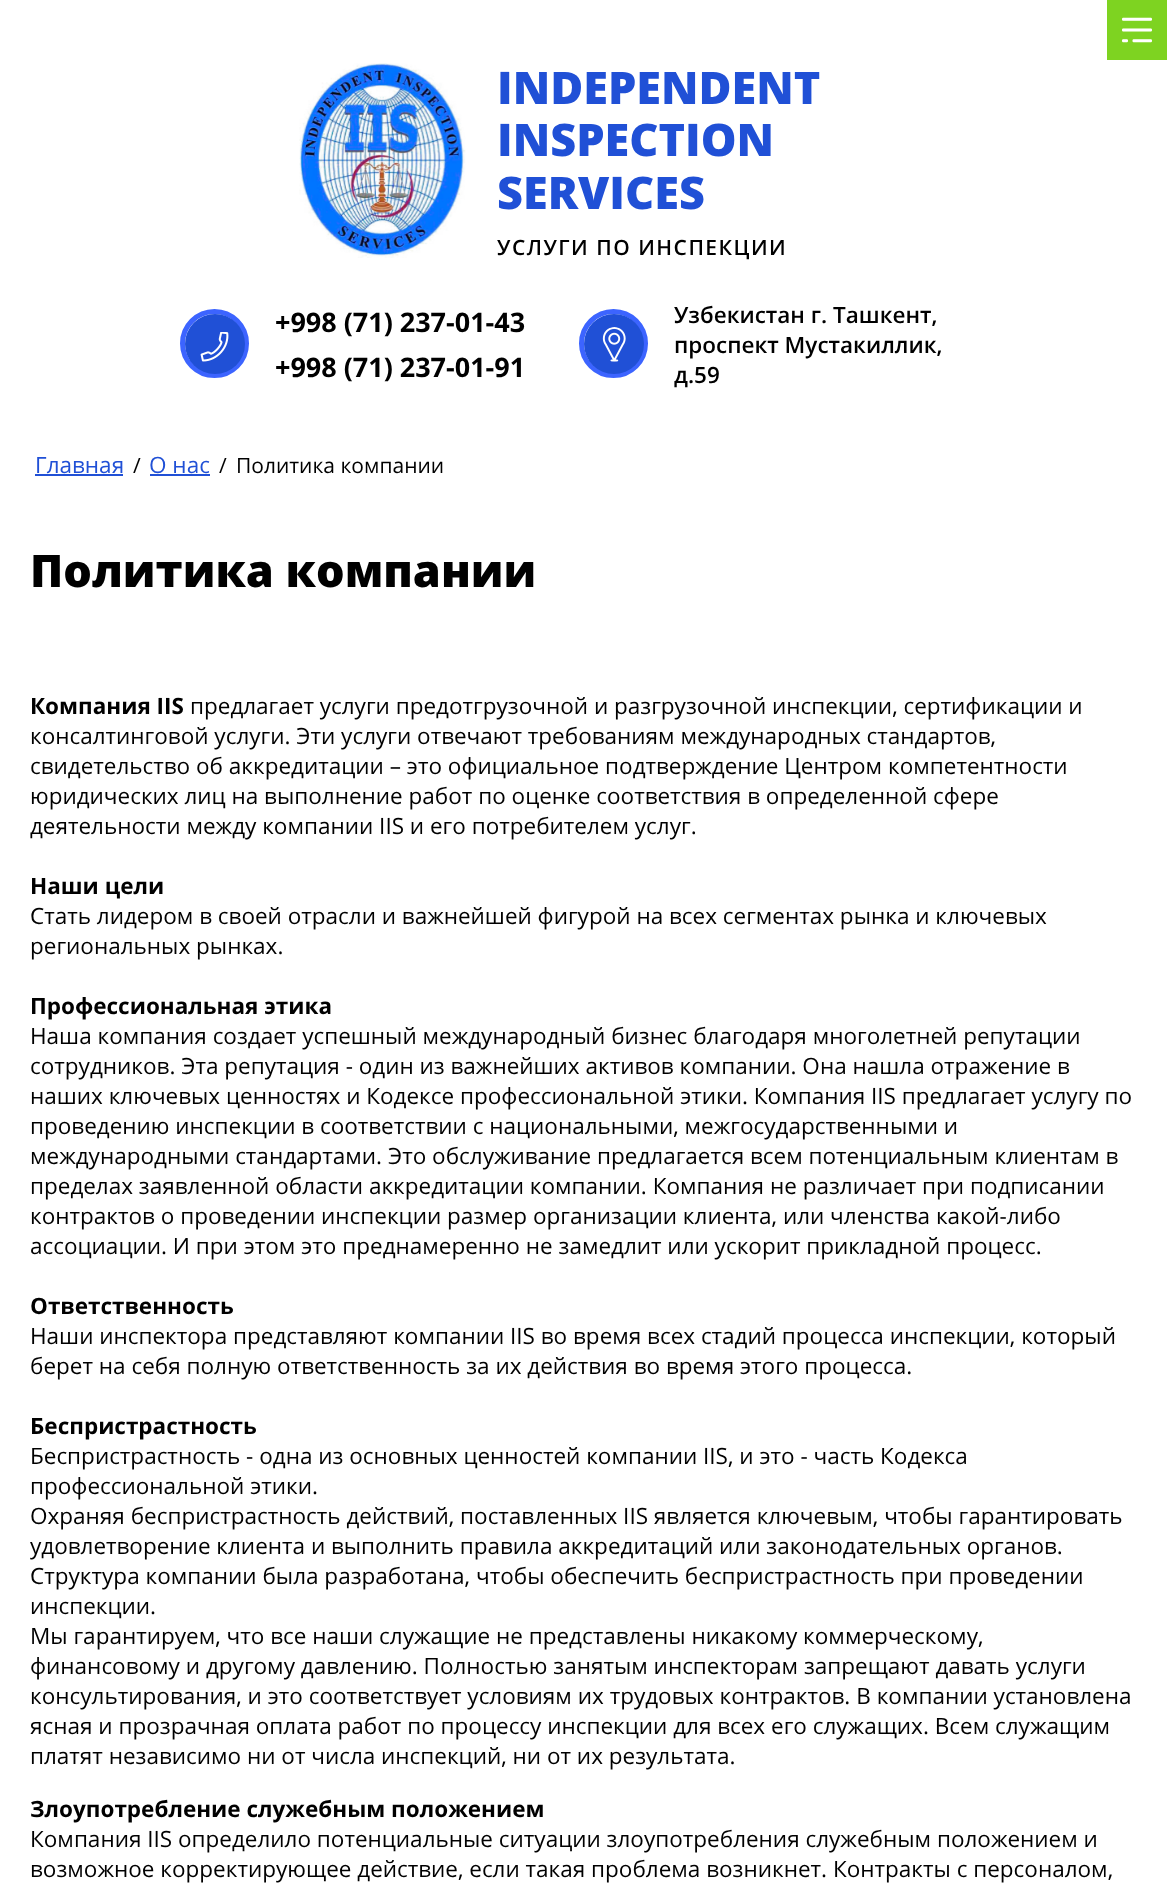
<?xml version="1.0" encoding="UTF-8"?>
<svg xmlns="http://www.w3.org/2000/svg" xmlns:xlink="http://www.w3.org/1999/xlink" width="1167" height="1886">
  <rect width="100%" height="100%" fill="#ffffff" />
  <rect x="1107" width="60" height="60" fill="#7ed321" />
  <image x="1122" y="17" width="30" height="26" xlink:href="image1.png" />
  <image x="299" y="63" width="167" height="195" xlink:href="image2.png" />
  <circle cx="214.5" cy="343.5" r="32" fill="none" stroke="#3c64ff" stroke-width="5" />
  <circle cx="215" cy="344" r="30" fill="#2050d6" />
  <image x="200" y="332" width="29" height="30" xlink:href="image3.png" />
  <circle cx="613.5" cy="343.5" r="32" fill="none" stroke="#3c64ff" stroke-width="5" />
  <circle cx="614" cy="344" r="30" fill="#2050d6" />
  <image x="602" y="327" width="24" height="35" xlink:href="image4.png" />
  <rect x="35" y="474" width="88" height="2" fill="#2050d6" />
  <rect x="150" y="474" width="60" height="2" fill="#2050d6" />
  <text x="497" y="104" style="font-family: Open Sans; font-size: 45px; font-weight: 800; fill: #2050d6">INDEPENDENT</text>
  <text x="497" y="156" style="font-family: Open Sans; font-size: 45px; font-weight: 800; fill: #2050d6">INSPECTION</text>
  <text x="497" y="209" style="font-family: Open Sans; font-size: 45px; font-weight: 800; fill: #2050d6">SERVICES</text>
  <text x="497" y="255" style="font-family: Open Sans; font-size: 21px; font-weight: 600; letter-spacing: 1.5px; fill: #000000">УСЛУГИ ПО ИНСПЕКЦИИ</text>
  <text x="275" y="332" style="font-family: Open Sans; font-size: 27px; font-weight: bold; fill: #000000">+998 (71) 237-01-43</text>
  <text x="275" y="377" style="font-family: Open Sans; font-size: 27px; font-weight: bold; fill: #000000">+998 (71) 237-01-91</text>
  <text x="674" y="323" style="font-family: Open Sans; font-size: 22.5px; font-weight: 600; fill: #000000">Узбекистан г. Ташкент,</text>
  <text x="674" y="353" style="font-family: Open Sans; font-size: 22.5px; font-weight: 600; fill: #000000">проспект Мустакиллик,</text>
  <text x="674" y="383" style="font-family: Open Sans; font-size: 22.5px; font-weight: 600; fill: #000000">д.59</text>
  <text x="35" y="473" style="font-family: Open Sans; font-size: 22.5px; fill: #2050d6">Главная</text>
  <text x="133" y="473" style="font-family: Open Sans; font-size: 21px; fill: #000000">/</text>
  <text x="149" y="473" style="font-family: Open Sans; font-size: 22.5px; fill: #2050d6">О нас</text>
  <text x="219" y="473" style="font-family: Open Sans; font-size: 21px; fill: #000000">/</text>
  <text x="236" y="473" style="font-family: Open Sans; font-size: 21px; fill: #000000">Политика компании</text>
  <text x="30" y="587" style="font-family: Open Sans; font-size: 45px; font-weight: 800; fill: #000000">Политика компании</text>
  <text x="30" y="714" style="font-family: Open Sans; font-size: 22.5px; font-weight: bold; fill: #000000">Компания IIS</text>
  <text x="190" y="714" style="font-family: Open Sans; font-size: 22.5px; fill: #000000">предлагает услуги предотгрузочной и разгрузочной инспекции, сертификации и</text>
  <text x="30" y="744" style="font-family: Open Sans; font-size: 22.5px; fill: #000000">консалтинговой услуги. Эти услуги отвечают требованиям международных стандартов,</text>
  <text x="30" y="774" style="font-family: Open Sans; font-size: 22.5px; fill: #000000">свидетельство об аккредитации – это официальное подтверждение Центром компетентности</text>
  <text x="30" y="804" style="font-family: Open Sans; font-size: 22.5px; fill: #000000">юридических лиц на выполнение работ по оценке соответствия в определенной сфере</text>
  <text x="30" y="834" style="font-family: Open Sans; font-size: 22.5px; fill: #000000">деятельности между компании IIS и его потребителем услуг.</text>
  <text x="30" y="894" style="font-family: Open Sans; font-size: 22.5px; font-weight: bold; fill: #000000">Наши цели</text>
  <text x="30" y="924" style="font-family: Open Sans; font-size: 22.5px; fill: #000000">Стать лидером в своей отрасли и важнейшей фигурой на всех сегментах рынка и ключевых</text>
  <text x="30" y="954" style="font-family: Open Sans; font-size: 22.5px; fill: #000000">региональных рынках.</text>
  <text x="30" y="1014" style="font-family: Open Sans; font-size: 22.5px; font-weight: bold; fill: #000000">Профессиональная этика</text>
  <text x="30" y="1044" style="font-family: Open Sans; font-size: 22.5px; fill: #000000">Наша компания создает успешный международный бизнес благодаря многолетней репутации</text>
  <text x="30" y="1074" style="font-family: Open Sans; font-size: 22.5px; fill: #000000">сотрудников. Эта репутация - один из важнейших активов компании. Она нашла отражение в</text>
  <text x="30" y="1104" style="font-family: Open Sans; font-size: 22.5px; fill: #000000">наших ключевых ценностях и Кодексе профессиональной этики. Компания IIS предлагает услугу по</text>
  <text x="30" y="1134" style="font-family: Open Sans; font-size: 22.5px; fill: #000000">проведению инспекции в соответствии с национальными, межгосударственными и</text>
  <text x="30" y="1164" style="font-family: Open Sans; font-size: 22.5px; fill: #000000">международными стандартами. Это обслуживание предлагается всем потенциальным клиентам в</text>
  <text x="30" y="1194" style="font-family: Open Sans; font-size: 22.5px; fill: #000000">пределах заявленной области аккредитации компании. Компания не различает при подписании</text>
  <text x="30" y="1224" style="font-family: Open Sans; font-size: 22.5px; fill: #000000">контрактов о проведении инспекции размер организации клиента, или членства какой-либо</text>
  <text x="30" y="1254" style="font-family: Open Sans; font-size: 22.5px; fill: #000000">ассоциации. И при этом это преднамеренно не замедлит или ускорит прикладной процесс.</text>
  <text x="30" y="1314" style="font-family: Open Sans; font-size: 22.5px; font-weight: bold; fill: #000000">Ответственность</text>
  <text x="30" y="1344" style="font-family: Open Sans; font-size: 22.5px; fill: #000000">Наши инспектора представляют компании IIS во время всех стадий процесса инспекции, который</text>
  <text x="30" y="1374" style="font-family: Open Sans; font-size: 22.5px; fill: #000000">берет на себя полную ответственность за их действия во время этого процесса.</text>
  <text x="30" y="1434" style="font-family: Open Sans; font-size: 22.5px; font-weight: bold; fill: #000000">Беспристрастность</text>
  <text x="30" y="1464" style="font-family: Open Sans; font-size: 22.5px; fill: #000000">Беспристрастность - одна из основных ценностей компании IIS, и это - часть Кодекса</text>
  <text x="30" y="1494" style="font-family: Open Sans; font-size: 22.5px; fill: #000000">профессиональной этики.</text>
  <text x="30" y="1524" style="font-family: Open Sans; font-size: 22.5px; fill: #000000">Охраняя беспристрастность действий, поставленных IIS является ключевым, чтобы гарантировать</text>
  <text x="30" y="1554" style="font-family: Open Sans; font-size: 22.5px; fill: #000000">удовлетворение клиента и выполнить правила аккредитаций или законодательных органов.</text>
  <text x="30" y="1584" style="font-family: Open Sans; font-size: 22.5px; fill: #000000">Структура компании была разработана, чтобы обеспечить беспристрастность при проведении</text>
  <text x="30" y="1614" style="font-family: Open Sans; font-size: 22.5px; fill: #000000">инспекции.</text>
  <text x="30" y="1644" style="font-family: Open Sans; font-size: 22.5px; fill: #000000">Мы гарантируем, что все наши служащие не представлены никакому коммерческому,</text>
  <text x="30" y="1674" style="font-family: Open Sans; font-size: 22.5px; fill: #000000">финансовому и другому давлению. Полностью занятым инспекторам запрещают давать услуги</text>
  <text x="30" y="1704" style="font-family: Open Sans; font-size: 22.5px; fill: #000000">консультирования, и это соответствует условиям их трудовых контрактов. В компании установлена</text>
  <text x="30" y="1734" style="font-family: Open Sans; font-size: 22.5px; fill: #000000">ясная и прозрачная оплата работ по процессу инспекции для всех его служащих. Всем служащим</text>
  <text x="30" y="1764" style="font-family: Open Sans; font-size: 22.5px; fill: #000000">платят независимо ни от числа инспекций, ни от их результата.</text>
  <text x="30" y="1817" style="font-family: Open Sans; font-size: 22.5px; font-weight: bold; fill: #000000">Злоупотребление служебным положением</text>
  <text x="30" y="1847" style="font-family: Open Sans; font-size: 22.5px; fill: #000000">Компания IIS определило потенциальные ситуации злоупотребления служебным положением и</text>
  <text x="30" y="1877" style="font-family: Open Sans; font-size: 22.5px; fill: #000000">возможное корректирующее действие, если такая проблема возникнет. Контракты с персоналом,</text>
</svg>
